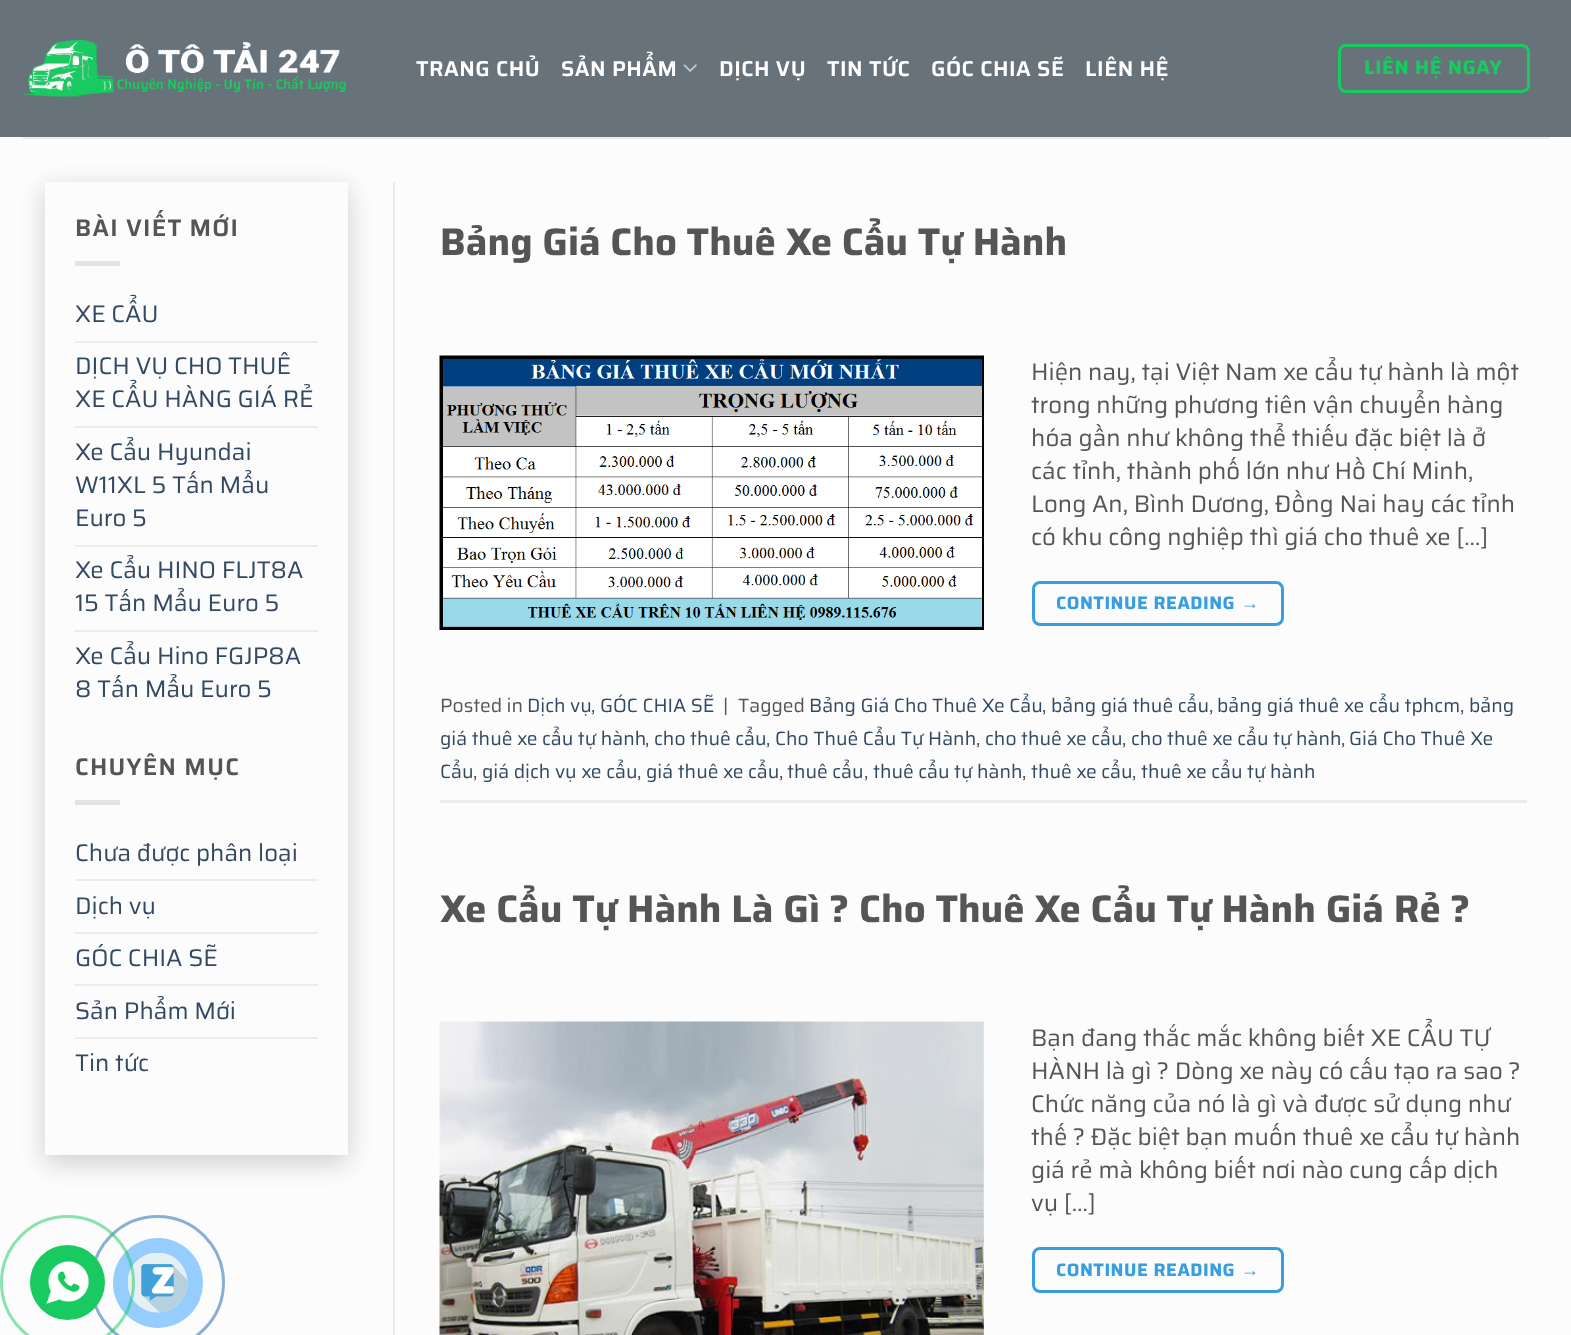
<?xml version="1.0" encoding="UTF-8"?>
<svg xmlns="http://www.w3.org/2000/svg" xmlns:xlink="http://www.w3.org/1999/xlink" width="1571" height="1335">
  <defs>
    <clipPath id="clip1"><path d="M 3 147 h 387 v 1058 h -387 z m 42 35 h 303 v 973 h -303 z" clip-rule="evenodd" /></clipPath>
  </defs>
  <rect width="100%" height="100%" fill="#fcfcfc" />
  <rect width="1571" height="137" fill="#68727a" />
  <image x="22" y="39" width="324" height="58" xlink:href="image1.png" />
  <image x="683" y="64" width="14" height="8" xlink:href="image2.png" />
  <rect x="1339.5" y="45.5" width="189" height="46" rx="6.5" fill="none" stroke="#18ca5f" stroke-width="3" />
  <rect x="23" y="137" width="1527" height="2" fill="#ebebeb" />
  <g clip-path="url(#clip1)">
    <rect x="45" y="189" width="303" height="974" fill="#000000" fill-opacity="0.18" filter="blur(13.5px)" />
  </g>
  <rect x="75" y="261" width="45" height="5" fill="#e3e3e3" />
  <rect x="75" y="341" width="243" height="2" fill="#ececec" />
  <rect x="75" y="426" width="243" height="2" fill="#ececec" />
  <rect x="75" y="545" width="243" height="2" fill="#ececec" />
  <rect x="75" y="630" width="243" height="2" fill="#ececec" />
  <rect x="75" y="800" width="45" height="5" fill="#e3e3e3" />
  <rect x="75" y="879" width="243" height="2" fill="#ececec" />
  <rect x="75" y="932" width="243" height="2" fill="#ececec" />
  <rect x="75" y="984" width="243" height="2" fill="#ececec" />
  <rect x="75" y="1037" width="243" height="2" fill="#ececec" />
  <rect x="393" y="182" width="2" height="1153" fill="#ececec" />
  <image x="439" y="355" width="545" height="275" xlink:href="image3.png" />
  <rect x="1033.5" y="582.5" width="249" height="42" rx="6.5" fill="none" stroke="#379ee1" stroke-width="3" />
  <rect x="440" y="800" width="1087" height="3" fill="#ececec" />
  <image x="439" y="1021" width="545" height="314" xlink:href="image4.png" />
  <rect x="1033.5" y="1248.5" width="249" height="43" rx="6.5" fill="none" stroke="#379ee1" stroke-width="3" />
  <circle cx="157.5" cy="1282.5" r="66" fill="none" stroke="#89b0d2" stroke-width="3" />
  <circle cx="158" cy="1283" r="45" fill="#94cdfe" />
  <image x="128" y="1253" width="60" height="60" xlink:href="image6.png" />
  <circle cx="67.5" cy="1282.5" r="66" fill="none" stroke="#18ca5f" stroke-opacity="0.5" stroke-width="3" />
  <circle cx="67.5" cy="1282.5" r="37.5" fill="#18ca5f" />
  <image x="46" y="1261" width="43" height="43" xlink:href="image5.png" />
  <text x="416" y="76" style="font-family: Saira; font-size: 21.5px; font-weight: 600; letter-spacing: 0.5px; fill: #ffffff">TRANG CHỦ</text>
  <text x="561" y="76" style="font-family: Saira; font-size: 21.5px; font-weight: 600; letter-spacing: 0.5px; fill: #ffffff">SẢN PHẨM</text>
  <text x="719" y="76" style="font-family: Saira; font-size: 21.5px; font-weight: 600; letter-spacing: 0.5px; fill: #ffffff">DỊCH VỤ</text>
  <text x="827" y="76" style="font-family: Saira; font-size: 21.5px; font-weight: 600; letter-spacing: 0.5px; fill: #ffffff">TIN TỨC</text>
  <text x="931" y="76" style="font-family: Saira; font-size: 21.5px; font-weight: 600; letter-spacing: 0.5px; fill: #ffffff">GÓC CHIA SẼ</text>
  <text x="1085" y="76" style="font-family: Saira; font-size: 21.5px; font-weight: 600; letter-spacing: 0.5px; fill: #ffffff">LIÊN HỆ</text>
  <text x="1364" y="74" style="font-family: Saira; font-size: 19.75px; font-weight: bold; letter-spacing: 0.6px; fill: #18ca5f">LIÊN HỆ NGAY</text>
  <text x="75" y="236" style="font-family: Saira; font-size: 24px; font-weight: 600; letter-spacing: 1.25px; fill: #555555">BÀI VIẾT MỚI</text>
  <text x="75" y="322" style="font-family: Saira; font-size: 24px; fill: #334862">XE CẨU</text>
  <text x="75" y="374" style="font-family: Saira; font-size: 24px; fill: #334862">DỊCH VỤ CHO THUÊ</text>
  <text x="75" y="407" style="font-family: Saira; font-size: 24px; fill: #334862">XE CẨU HÀNG GIÁ RẺ</text>
  <text x="75" y="460" style="font-family: Saira; font-size: 24px; fill: #334862">Xe Cẩu Hyundai</text>
  <text x="75" y="493" style="font-family: Saira; font-size: 24px; fill: #334862">W11XL 5 Tấn Mẩu</text>
  <text x="75" y="526" style="font-family: Saira; font-size: 24px; fill: #334862">Euro 5</text>
  <text x="75" y="578" style="font-family: Saira; font-size: 24px; fill: #334862">Xe Cẩu HINO FLJT8A</text>
  <text x="75" y="611" style="font-family: Saira; font-size: 24px; fill: #334862">15 Tấn Mẩu Euro 5</text>
  <text x="75" y="664" style="font-family: Saira; font-size: 24px; fill: #334862">Xe Cẩu Hino FGJP8A</text>
  <text x="75" y="697" style="font-family: Saira; font-size: 24px; fill: #334862">8 Tấn Mẩu Euro 5</text>
  <text x="75" y="775" style="font-family: Saira; font-size: 24px; font-weight: 600; letter-spacing: 1.25px; fill: #555555">CHUYÊN MỤC</text>
  <text x="75" y="861" style="font-family: Saira; font-size: 24px; fill: #334862">Chưa được phân loại</text>
  <text x="75" y="914" style="font-family: Saira; font-size: 24px; fill: #334862">Dịch vụ</text>
  <text x="75" y="966" style="font-family: Saira; font-size: 24px; fill: #334862">GÓC CHIA SẼ</text>
  <text x="75" y="1019" style="font-family: Saira; font-size: 24px; fill: #334862">Sản Phẩm Mới</text>
  <text x="75" y="1071" style="font-family: Saira; font-size: 24px; fill: #334862">Tin tức</text>
  <text x="440" y="255" style="font-family: Saira; font-size: 38.4px; font-weight: bold; fill: #555555">Bảng Giá Cho Thuê Xe Cẩu Tự Hành</text>
  <text x="1031" y="380" style="font-family: Saira; font-size: 24px; fill: #555555">Hiện nay, tại Việt Nam xe cẩu tự hành là một</text>
  <text x="1031" y="413" style="font-family: Saira; font-size: 24px; fill: #555555">trong những phương tiên vận chuyển hàng</text>
  <text x="1031" y="446" style="font-family: Saira; font-size: 24px; fill: #555555">hóa gần như không thể thiếu đặc biệt là ở</text>
  <text x="1031" y="479" style="font-family: Saira; font-size: 24px; fill: #555555">các tỉnh, thành phố lớn như Hồ Chí Minh,</text>
  <text x="1031" y="512" style="font-family: Saira; font-size: 24px; fill: #555555">Long An, Bình Dương, Đồng Nai hay các tỉnh</text>
  <text x="1031" y="545" style="font-family: Saira; font-size: 24px; fill: #555555">có khu công nghiệp thì giá cho thuê xe […]</text>
  <text x="1056" y="609" style="font-family: Saira; font-size: 18px; font-weight: bold; letter-spacing: 0.5px; fill: #379ee1">CONTINUE READING</text>
  <text x="1241" y="609" style="font-family: Liberation Sans; font-size: 18px; font-weight: bold; letter-spacing: 0.5px; fill: #379ee1">→</text>
  <text x="440" y="712" style="font-family: Saira; font-size: 19.25px; fill: #555555">Posted in</text>
  <text x="527" y="712" style="font-family: Saira; font-size: 19.25px; fill: #334862">Dịch vụ</text>
  <text x="591" y="712" style="font-family: Saira; font-size: 19.25px; fill: #555555">,</text>
  <text x="600" y="712" style="font-family: Saira; font-size: 19.25px; fill: #334862">GÓC CHIA SẼ</text>
  <text x="723" y="712" style="font-family: Saira; font-size: 19.25px; fill: #555555">|</text>
  <text x="738" y="712" style="font-family: Saira; font-size: 19.25px; fill: #555555">Tagged</text>
  <text x="809" y="712" style="font-family: Saira; font-size: 19.25px; fill: #334862">Bảng Giá Cho Thuê Xe Cẩu</text>
  <text x="1042" y="712" style="font-family: Saira; font-size: 19.25px; fill: #555555">,</text>
  <text x="1051" y="712" style="font-family: Saira; font-size: 19.25px; fill: #334862">bảng giá thuê cẩu</text>
  <text x="1209" y="712" style="font-family: Saira; font-size: 19.25px; fill: #555555">,</text>
  <text x="1217" y="712" style="font-family: Saira; font-size: 19.25px; fill: #334862">bảng giá thuê xe cẩu tphcm</text>
  <text x="1460" y="712" style="font-family: Saira; font-size: 19.25px; fill: #555555">,</text>
  <text x="1469" y="712" style="font-family: Saira; font-size: 19.25px; fill: #334862">bảng</text>
  <text x="440" y="745" style="font-family: Saira; font-size: 19.25px; fill: #334862">giá thuê xe cẩu tự hành</text>
  <text x="645" y="745" style="font-family: Saira; font-size: 19.25px; fill: #555555">,</text>
  <text x="654" y="745" style="font-family: Saira; font-size: 19.25px; fill: #334862">cho thuê cẩu</text>
  <text x="766" y="745" style="font-family: Saira; font-size: 19.25px; fill: #555555">,</text>
  <text x="775" y="745" style="font-family: Saira; font-size: 19.25px; fill: #334862">Cho Thuê Cẩu Tự Hành</text>
  <text x="976" y="745" style="font-family: Saira; font-size: 19.25px; fill: #555555">,</text>
  <text x="985" y="745" style="font-family: Saira; font-size: 19.25px; fill: #334862">cho thuê xe cẩu</text>
  <text x="1122" y="745" style="font-family: Saira; font-size: 19.25px; fill: #555555">,</text>
  <text x="1131" y="745" style="font-family: Saira; font-size: 19.25px; fill: #334862">cho thuê xe cẩu tự hành</text>
  <text x="1341" y="745" style="font-family: Saira; font-size: 19.25px; fill: #555555">,</text>
  <text x="1349" y="745" style="font-family: Saira; font-size: 19.25px; fill: #334862">Giá Cho Thuê Xe</text>
  <text x="440" y="778" style="font-family: Saira; font-size: 19.25px; fill: #334862">Cẩu</text>
  <text x="473" y="778" style="font-family: Saira; font-size: 19.25px; fill: #555555">,</text>
  <text x="482" y="778" style="font-family: Saira; font-size: 19.25px; fill: #334862">giá dịch vụ xe cẩu</text>
  <text x="637" y="778" style="font-family: Saira; font-size: 19.25px; fill: #555555">,</text>
  <text x="646" y="778" style="font-family: Saira; font-size: 19.25px; fill: #334862">giá thuê xe cẩu</text>
  <text x="779" y="778" style="font-family: Saira; font-size: 19.25px; fill: #555555">,</text>
  <text x="787" y="778" style="font-family: Saira; font-size: 19.25px; fill: #334862">thuê cẩu</text>
  <text x="864" y="778" style="font-family: Saira; font-size: 19.25px; fill: #555555">,</text>
  <text x="873" y="778" style="font-family: Saira; font-size: 19.25px; fill: #334862">thuê cẩu tự hành</text>
  <text x="1022" y="778" style="font-family: Saira; font-size: 19.25px; fill: #555555">,</text>
  <text x="1031" y="778" style="font-family: Saira; font-size: 19.25px; fill: #334862">thuê xe cẩu</text>
  <text x="1132" y="778" style="font-family: Saira; font-size: 19.25px; fill: #555555">,</text>
  <text x="1141" y="778" style="font-family: Saira; font-size: 19.25px; fill: #334862">thuê xe cẩu tự hành</text>
  <text x="440" y="922" style="font-family: Saira; font-size: 38.4px; font-weight: bold; fill: #555555">Xe Cẩu Tự Hành Là Gì ? Cho Thuê Xe Cẩu Tự Hành Giá Rẻ ?</text>
  <text x="1031" y="1046" style="font-family: Saira; font-size: 24px; fill: #555555">Bạn đang thắc mắc không biết XE CẨU TỰ</text>
  <text x="1031" y="1079" style="font-family: Saira; font-size: 24px; fill: #555555">HÀNH là gì ? Dòng xe này có cấu tạo ra sao ?</text>
  <text x="1031" y="1112" style="font-family: Saira; font-size: 24px; fill: #555555">Chức năng của nó là gì và được sử dụng như</text>
  <text x="1031" y="1145" style="font-family: Saira; font-size: 24px; fill: #555555">thế ? Đặc biệt bạn muốn thuê xe cẩu tự hành</text>
  <text x="1031" y="1178" style="font-family: Saira; font-size: 24px; fill: #555555">giá rẻ mà không biết nơi nào cung cấp dịch</text>
  <text x="1031" y="1211" style="font-family: Saira; font-size: 24px; fill: #555555">vụ […]</text>
  <text x="1056" y="1276" style="font-family: Saira; font-size: 18px; font-weight: bold; letter-spacing: 0.5px; fill: #379ee1">CONTINUE READING</text>
  <text x="1241" y="1276" style="font-family: Liberation Sans; font-size: 18px; font-weight: bold; letter-spacing: 0.5px; fill: #379ee1">→</text>
</svg>
